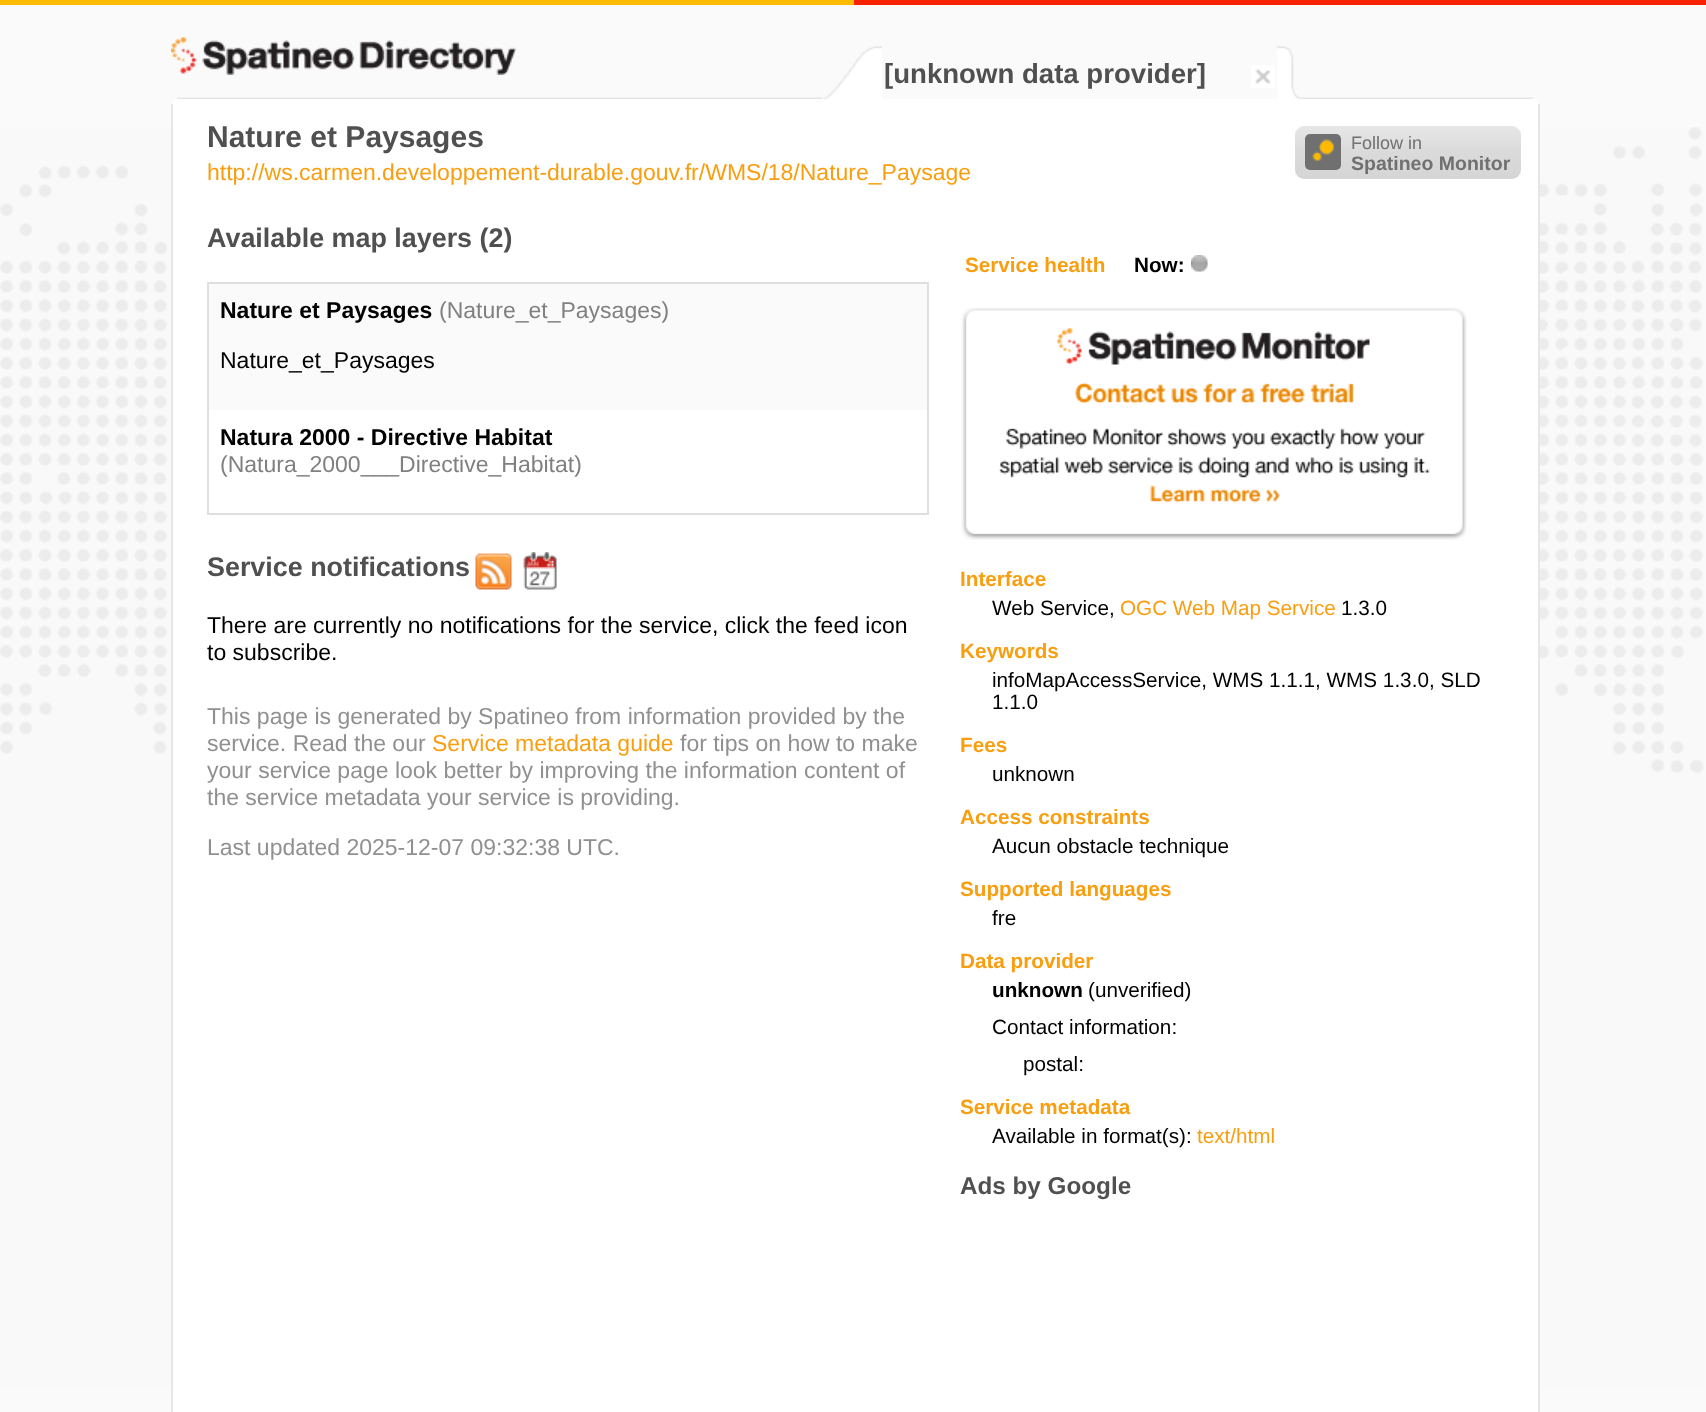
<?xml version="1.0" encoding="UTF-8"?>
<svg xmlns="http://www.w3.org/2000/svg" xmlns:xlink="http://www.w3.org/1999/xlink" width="1706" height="1412">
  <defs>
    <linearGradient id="g1" gradientUnits="userSpaceOnUse" x1="1408" y1="126" x2="1408" y2="179"><stop offset="0" stop-color="#e7e7e7" /><stop offset="0.5" stop-color="#dadada" /><stop offset="1" stop-color="#d5d5d5" /></linearGradient>
  </defs>
  <rect width="100%" height="100%" fill="#fafafa" />
  <rect width="854" height="5" fill="#ffbb00" />
  <rect x="854" width="852" height="5" fill="#f82200" />
  <image x="0" y="127" width="1704" height="1260" xlink:href="image1.png" />
  <image x="171" y="37" width="345" height="38" xlink:href="image2.png" />
  <image x="823" y="46" width="59" height="53" xlink:href="image3.png" />
  <image x="1276" y="46" width="25" height="53" xlink:href="image5.png" />
  <rect x="1276" y="47" width="1" height="52" fill="#fafafa" />
  <image x="1251" y="65" width="24" height="23" xlink:href="image4.png" />
  <image x="177" y="97" width="645" height="2" xlink:href="image6.png" />
  <image x="1300" y="97" width="233" height="2" xlink:href="image7.png" />
  <path d="M 179 99 h 1352 c 4.5 0 8 3.5 8 8 v 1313 h -1368 v -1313 c 0 -4.5 3.5 -8 8 -8 z" fill="#ffffff" />
  <rect x="1538" y="104" width="2" height="1308" fill="#e6e6e6" />
  <rect x="171" y="104" width="2" height="1308" fill="#e6e6e6" />
  <rect x="208" y="283" width="720" height="231" fill="none" stroke="#dfdfdf" stroke-width="2" />
  <rect x="209" y="284" width="718" height="126" fill="#fafafa" />
  <image x="475" y="553" width="37" height="37" xlink:href="image8.png" />
  <image x="523" y="552" width="34" height="38" xlink:href="image9.png" />
  <image x="1191" y="255" width="17" height="17" xlink:href="image10.png" />
  <image x="961" y="307" width="506" height="233" xlink:href="image11.png" />
  <rect x="1295" y="126" width="226" height="53" rx="9" fill="url(#g1)" />
  <rect x="1305" y="134" width="36" height="36" rx="5" fill="#707070" />
  <image x="1312" y="139" width="22" height="22" xlink:href="image12.png" />
  <text x="884" y="83" style="font-family: Liberation Sans; font-size: 27.6px; font-weight: bold; fill: #505050">[unknown data provider]</text>
  <text x="207" y="147" style="font-family: Liberation Sans; font-size: 30px; font-weight: bold; fill: #505050">Nature et Paysages</text>
  <text x="207" y="180" style="font-family: Liberation Sans; font-size: 23px; fill: #f99e0f">http://ws.carmen.developpement-durable.gouv.fr/WMS/18/Nature_Paysage</text>
  <text x="207" y="247" style="font-family: Liberation Sans; font-size: 26.9px; font-weight: bold; fill: #505050">Available map layers (2)</text>
  <text x="220" y="318" style="font-family: Liberation Sans; font-size: 23px; font-weight: bold; fill: #000000">Nature et Paysages</text>
  <text x="439" y="318" style="font-family: Liberation Sans; font-size: 23px; fill: #808080">(Nature_et_Paysages)</text>
  <text x="220" y="368" style="font-family: Liberation Sans; font-size: 23px; fill: #000000">Nature_et_Paysages</text>
  <text x="220" y="445" style="font-family: Liberation Sans; font-size: 23px; font-weight: bold; fill: #000000">Natura 2000 - Directive Habitat</text>
  <text x="220" y="472" style="font-family: Liberation Sans; font-size: 23px; fill: #808080">(Natura_2000___Directive_Habitat)</text>
  <text x="207" y="576" style="font-family: Liberation Sans; font-size: 26.9px; font-weight: bold; fill: #505050">Service notifications</text>
  <text x="207" y="633" style="font-family: Liberation Sans; font-size: 23px; fill: #000000">There are currently no notifications for the service, click the feed icon</text>
  <text x="207" y="660" style="font-family: Liberation Sans; font-size: 23px; fill: #000000">to subscribe.</text>
  <text x="207" y="724" style="font-family: Liberation Sans; font-size: 23px; fill: #909090">This page is generated by Spatineo from information provided by the</text>
  <text x="207" y="751" style="font-family: Liberation Sans; font-size: 23px; fill: #909090">service. Read the our</text>
  <text x="432" y="751" style="font-family: Liberation Sans; font-size: 23px; fill: #f99e0f">Service metadata guide</text>
  <text x="680" y="751" style="font-family: Liberation Sans; font-size: 23px; fill: #909090">for tips on how to make</text>
  <text x="207" y="778" style="font-family: Liberation Sans; font-size: 23px; fill: #909090">your service page look better by improving the information content of</text>
  <text x="207" y="805" style="font-family: Liberation Sans; font-size: 23px; fill: #909090">the service metadata your service is providing.</text>
  <text x="207" y="855" style="font-family: Liberation Sans; font-size: 23px; fill: #909090">Last updated 2025-12-07 09:32:38 UTC.</text>
  <text x="965" y="272" style="font-family: Liberation Sans; font-size: 20.7px; font-weight: bold; fill: #f99e0f">Service health</text>
  <text x="1134" y="272" style="font-family: Liberation Sans; font-size: 20.7px; font-weight: bold; fill: #000000">Now:</text>
  <text x="960" y="586" style="font-family: Liberation Sans; font-size: 20.7px; font-weight: bold; fill: #f99e0f">Interface</text>
  <text x="992" y="615" style="font-family: Liberation Sans; font-size: 20.7px; fill: #000000">Web Service,</text>
  <text x="1120" y="615" style="font-family: Liberation Sans; font-size: 20.7px; fill: #f99e0f">OGC Web Map Service</text>
  <text x="1341" y="615" style="font-family: Liberation Sans; font-size: 20.7px; fill: #000000">1.3.0</text>
  <text x="960" y="658" style="font-family: Liberation Sans; font-size: 20.7px; font-weight: bold; fill: #f99e0f">Keywords</text>
  <text x="992" y="687" style="font-family: Liberation Sans; font-size: 20.7px; fill: #000000">infoMapAccessService, WMS 1.1.1, WMS 1.3.0, SLD</text>
  <text x="992" y="709" style="font-family: Liberation Sans; font-size: 20.7px; fill: #000000">1.1.0</text>
  <text x="960" y="752" style="font-family: Liberation Sans; font-size: 20.7px; font-weight: bold; fill: #f99e0f">Fees</text>
  <text x="992" y="781" style="font-family: Liberation Sans; font-size: 20.7px; fill: #000000">unknown</text>
  <text x="960" y="824" style="font-family: Liberation Sans; font-size: 20.7px; font-weight: bold; fill: #f99e0f">Access constraints</text>
  <text x="992" y="853" style="font-family: Liberation Sans; font-size: 20.7px; fill: #000000">Aucun obstacle technique</text>
  <text x="960" y="896" style="font-family: Liberation Sans; font-size: 20.7px; font-weight: bold; fill: #f99e0f">Supported languages</text>
  <text x="992" y="925" style="font-family: Liberation Sans; font-size: 20.7px; fill: #000000">fre</text>
  <text x="960" y="968" style="font-family: Liberation Sans; font-size: 20.7px; font-weight: bold; fill: #f99e0f">Data provider</text>
  <text x="992" y="997" style="font-family: Liberation Sans; font-size: 20.7px; font-weight: bold; fill: #000000">unknown</text>
  <text x="1088" y="997" style="font-family: Liberation Sans; font-size: 20.7px; fill: #000000">(unverified)</text>
  <text x="992" y="1034" style="font-family: Liberation Sans; font-size: 20.7px; fill: #000000">Contact information:</text>
  <text x="1023" y="1071" style="font-family: Liberation Sans; font-size: 20.7px; fill: #000000">postal:</text>
  <text x="960" y="1114" style="font-family: Liberation Sans; font-size: 20.7px; font-weight: bold; fill: #f99e0f">Service metadata</text>
  <text x="992" y="1143" style="font-family: Liberation Sans; font-size: 20.7px; fill: #000000">Available in format(s):</text>
  <text x="1197" y="1143" style="font-family: Liberation Sans; font-size: 20.7px; fill: #f99e0f">text/html</text>
  <text x="960" y="1194" style="font-family: Liberation Sans; font-size: 24.25px; font-weight: bold; fill: #505050">Ads by Google</text>
  <text x="1351" y="149" style="font-family: Liberation Sans; font-size: 18px; fill: #707070">Follow in</text>
  <text x="1351" y="170" style="font-family: Liberation Sans; font-size: 19.5px; font-weight: bold; fill: #707070">Spatineo Monitor</text>
</svg>
